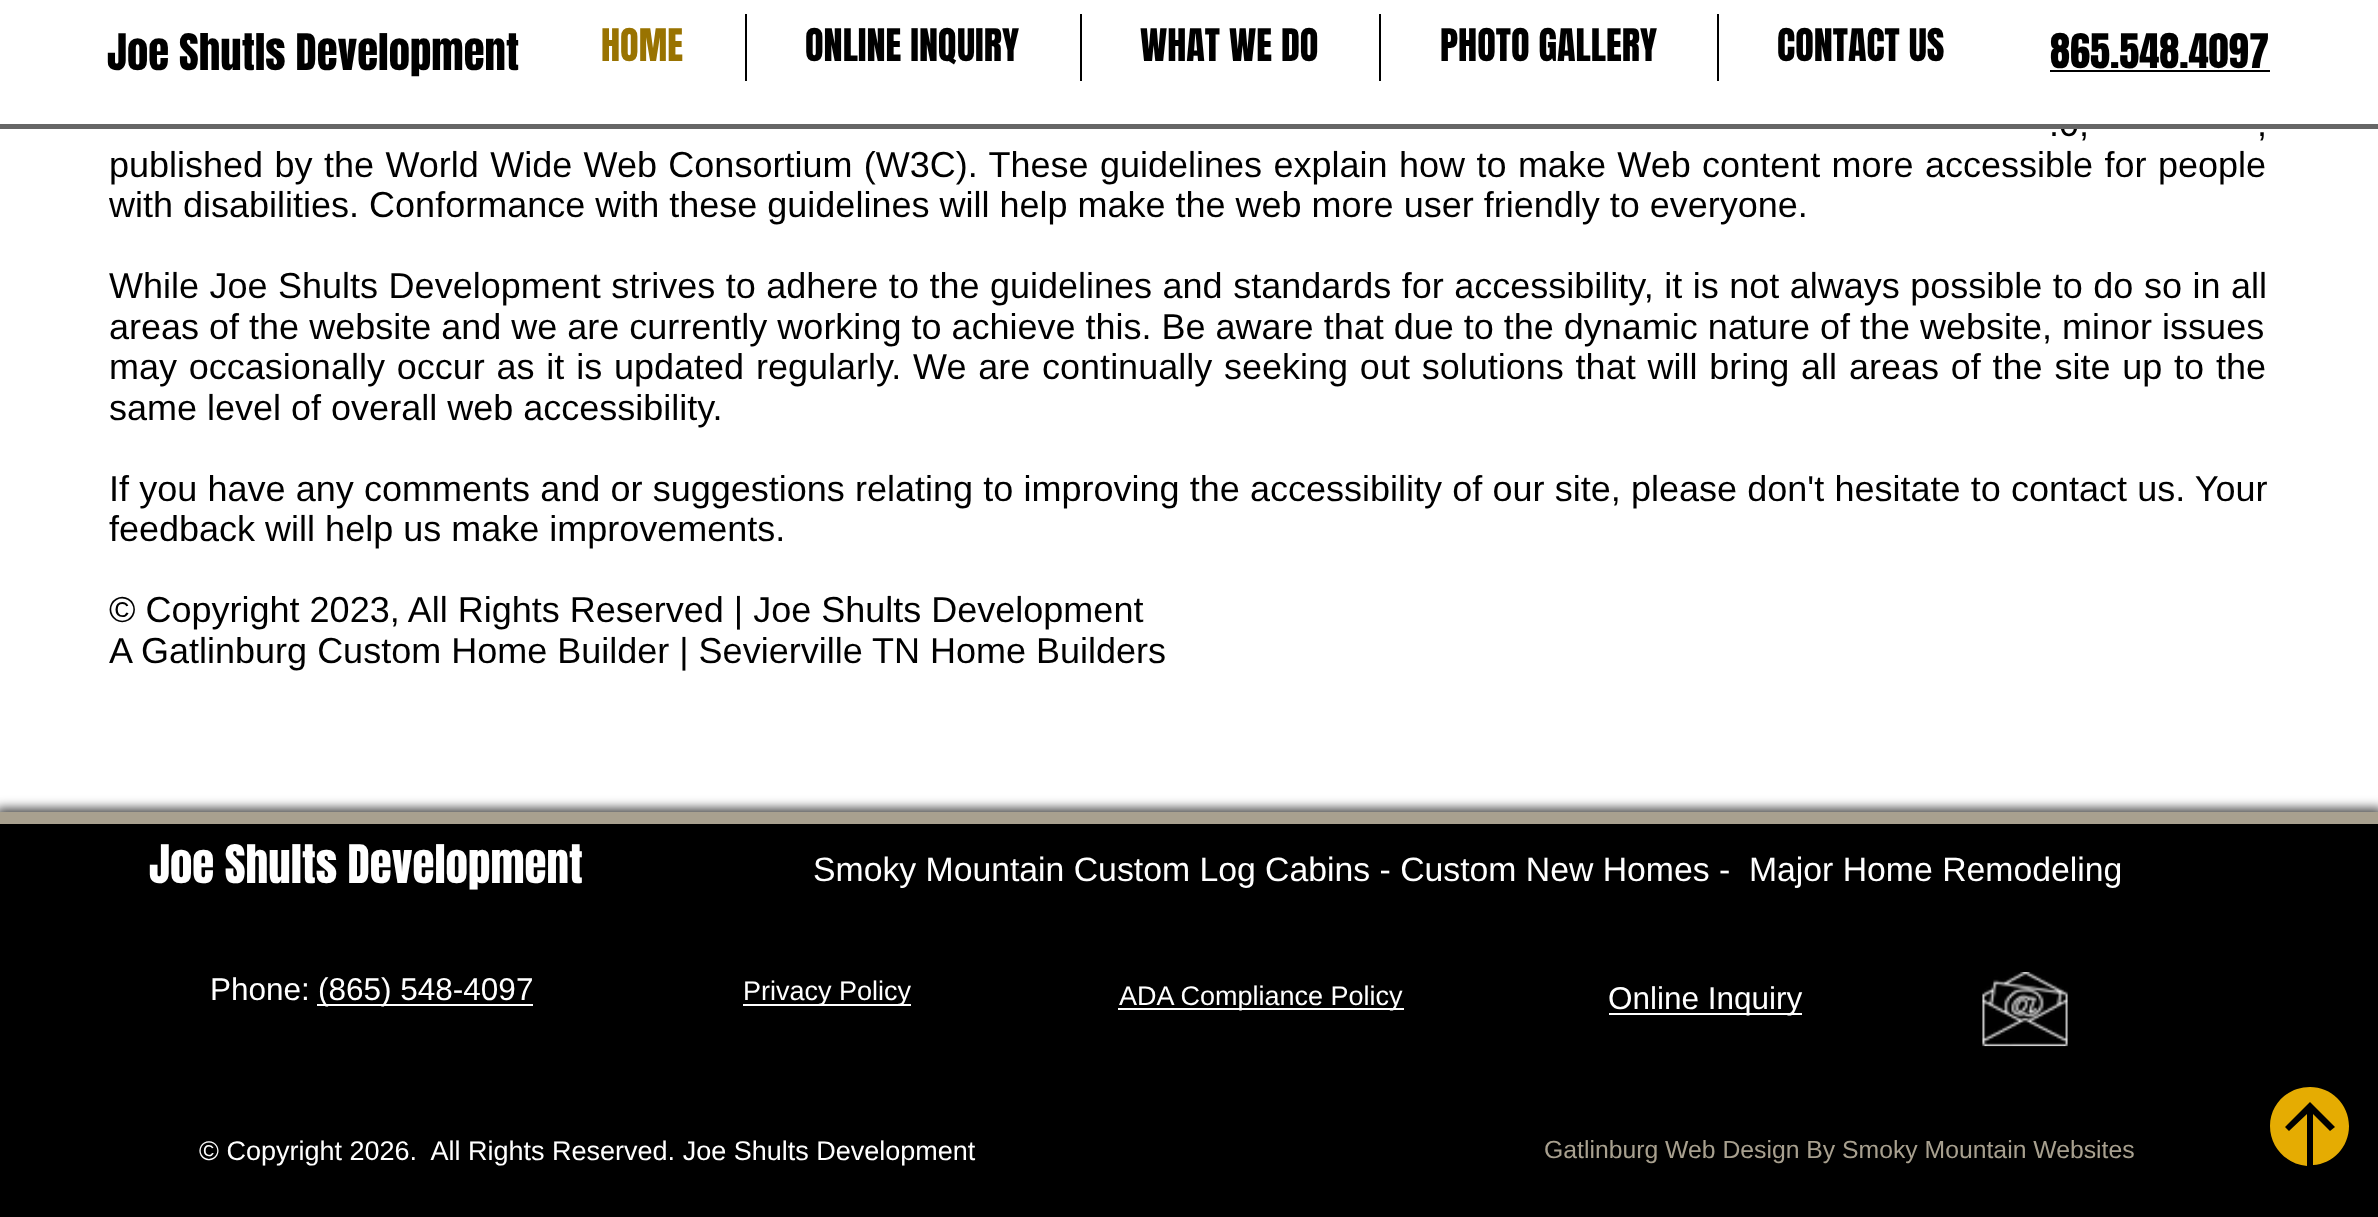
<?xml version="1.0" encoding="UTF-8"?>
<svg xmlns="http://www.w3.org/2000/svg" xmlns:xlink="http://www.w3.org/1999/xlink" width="2378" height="1217">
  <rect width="100%" height="100%" fill="#ffffff" />
  <rect x="745" y="14" width="2" height="67" fill="#000000" />
  <rect x="1080" y="14" width="2" height="67" fill="#000000" />
  <rect x="1379" y="14" width="2" height="67" fill="#000000" />
  <rect x="1717" y="14" width="2" height="67" fill="#000000" />
  <rect x="2050" y="70" width="220" height="2" fill="#000000" />
  <rect x="-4" y="808" width="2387" height="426" fill="#000000" fill-opacity="0.7" filter="blur(5.5px)" />
  <rect y="824" width="2378" height="393" fill="#000000" />
  <rect y="812" width="2378" height="12" fill="#a8a08f" />
  <rect x="317" y="1004" width="216" height="2" fill="#ffffff" />
  <rect x="743" y="1004" width="168" height="2" fill="#ffffff" />
  <rect x="1118" y="1008" width="286" height="2" fill="#ffffff" />
  <rect x="1609" y="1013" width="193" height="2" fill="#ffffff" />
  <image x="1982" y="972" width="86" height="75" xlink:href="image1.png" />
  <path d="M 2270 1126 c 0 21 16 38 37 40 v -52 l -18 17 l -4 -4 l 25 -25 l 25 25 l -5 4 l -17 -17 v 51 c 20 -1 36 -18 36 -39 c 0 -22 -18 -39 -39 -39 c -22 0 -40 17 -40 39 z" fill="#e5ac02" />
  <text x="107" y="70" style="font-family: Anton; font-size: 42.75px; fill: #000000">Joe Shutls Development</text>
  <text x="601" y="61" style="font-family: Anton; font-size: 38.25px; fill: #997301">HOME</text>
  <text x="805" y="61" style="font-family: Anton; font-size: 38.25px; fill: #000000">ONLINE INQUIRY</text>
  <text x="1140" y="61" style="font-family: Anton; font-size: 38.25px; fill: #000000">WHAT WE DO</text>
  <text x="1440" y="61" style="font-family: Anton; font-size: 38.25px; fill: #000000">PHOTO GALLERY</text>
  <text x="1777" y="61" style="font-family: Anton; font-size: 38.25px; fill: #000000">CONTACT US</text>
  <text x="2050" y="68" style="font-family: Anton; font-size: 40.5px; fill: #000000">865.548.4097</text>
  <text x="2049" y="136" word-spacing="2" style="font-family: Liberation Sans; font-size: 36px; fill: #000000">.0,</text>
  <rect y="124" width="2378" height="5" fill="#666666" />
  <rect x="2060" y="110" width="19" height="14" fill="#ffffff" />
  <text x="2257" y="136" word-spacing="2" style="font-family: Liberation Sans; font-size: 36px; fill: #000000">,</text>
  <text x="109" y="177" word-spacing="1.4" style="font-family: Liberation Sans; font-size: 36px; fill: #000000">published by the World Wide Web Consortium (W3C). These guidelines explain how to make Web content more accessible for people</text>
  <text x="109" y="217" style="font-family: Liberation Sans; font-size: 36px; fill: #000000">with disabilities. Conformance with these guidelines will help make the web more user friendly to everyone.</text>
  <text x="109" y="298" word-spacing="0.5" style="font-family: Liberation Sans; font-size: 36px; fill: #000000">While Joe Shults Development strives to adhere to the guidelines and standards for accessibility, it is not always possible to do so in all</text>
  <text x="109" y="339" style="font-family: Liberation Sans; font-size: 36px; fill: #000000">areas of the website and we are currently working to achieve this. Be aware that due to the dynamic nature of the website, minor issues</text>
  <text x="109" y="379" word-spacing="1.8" style="font-family: Liberation Sans; font-size: 36px; fill: #000000">may occasionally occur as it is updated regularly. We are continually seeking out solutions that will bring all areas of the site up to the</text>
  <text x="109" y="420" style="font-family: Liberation Sans; font-size: 36px; fill: #000000">same level of overall web accessibility.</text>
  <text x="109" y="501" word-spacing="0.2" style="font-family: Liberation Sans; font-size: 36px; fill: #000000">If you have any comments and or suggestions relating to improving the accessibility of our site, please don't hesitate to contact us. Your</text>
  <text x="109" y="541" style="font-family: Liberation Sans; font-size: 36px; fill: #000000">feedback will help us make improvements.</text>
  <text x="109" y="622" style="font-family: Liberation Sans; font-size: 36px; fill: #000000">© Copyright 2023, All Rights Reserved | Joe Shults Development</text>
  <text x="109" y="663" style="font-family: Liberation Sans; font-size: 36px; fill: #000000">A Gatlinburg Custom Home Builder | Sevierville TN Home Builders</text>
  <text x="149" y="883" style="font-family: Anton; font-size: 45px; fill: #ffffff">Joe Shults Development</text>
  <text x="813" y="881" style="font-family: Liberation Sans; font-size: 33.75px; fill: #ffffff" xml:space="preserve">Smoky Mountain Custom Log Cabins - Custom New Homes -  Major Home Remodeling</text>
  <text x="210" y="1000" style="font-family: Liberation Sans; font-size: 31.5px; fill: #ffffff">Phone:</text>
  <text x="318" y="1000" style="font-family: Liberation Sans; font-size: 31.5px; fill: #ffffff">(865) 548-4097</text>
  <text x="743" y="1000" style="font-family: Liberation Sans; font-size: 27px; fill: #ffffff">Privacy Policy</text>
  <text x="1119" y="1005" style="font-family: Liberation Sans; font-size: 27px; fill: #ffffff">ADA Compliance Policy</text>
  <text x="1608" y="1009" style="font-family: Liberation Sans; font-size: 31.5px; fill: #ffffff">Online Inquiry</text>
  <text x="199" y="1160" style="font-family: Liberation Sans; font-size: 27px; fill: #ffffff" xml:space="preserve">© Copyright 2026.  All Rights Reserved. Joe Shults Development</text>
  <text x="1544" y="1158" style="font-family: Liberation Sans; font-size: 24.75px; fill: #a8a08f">Gatlinburg Web Design By Smoky Mountain Websites</text>
</svg>
